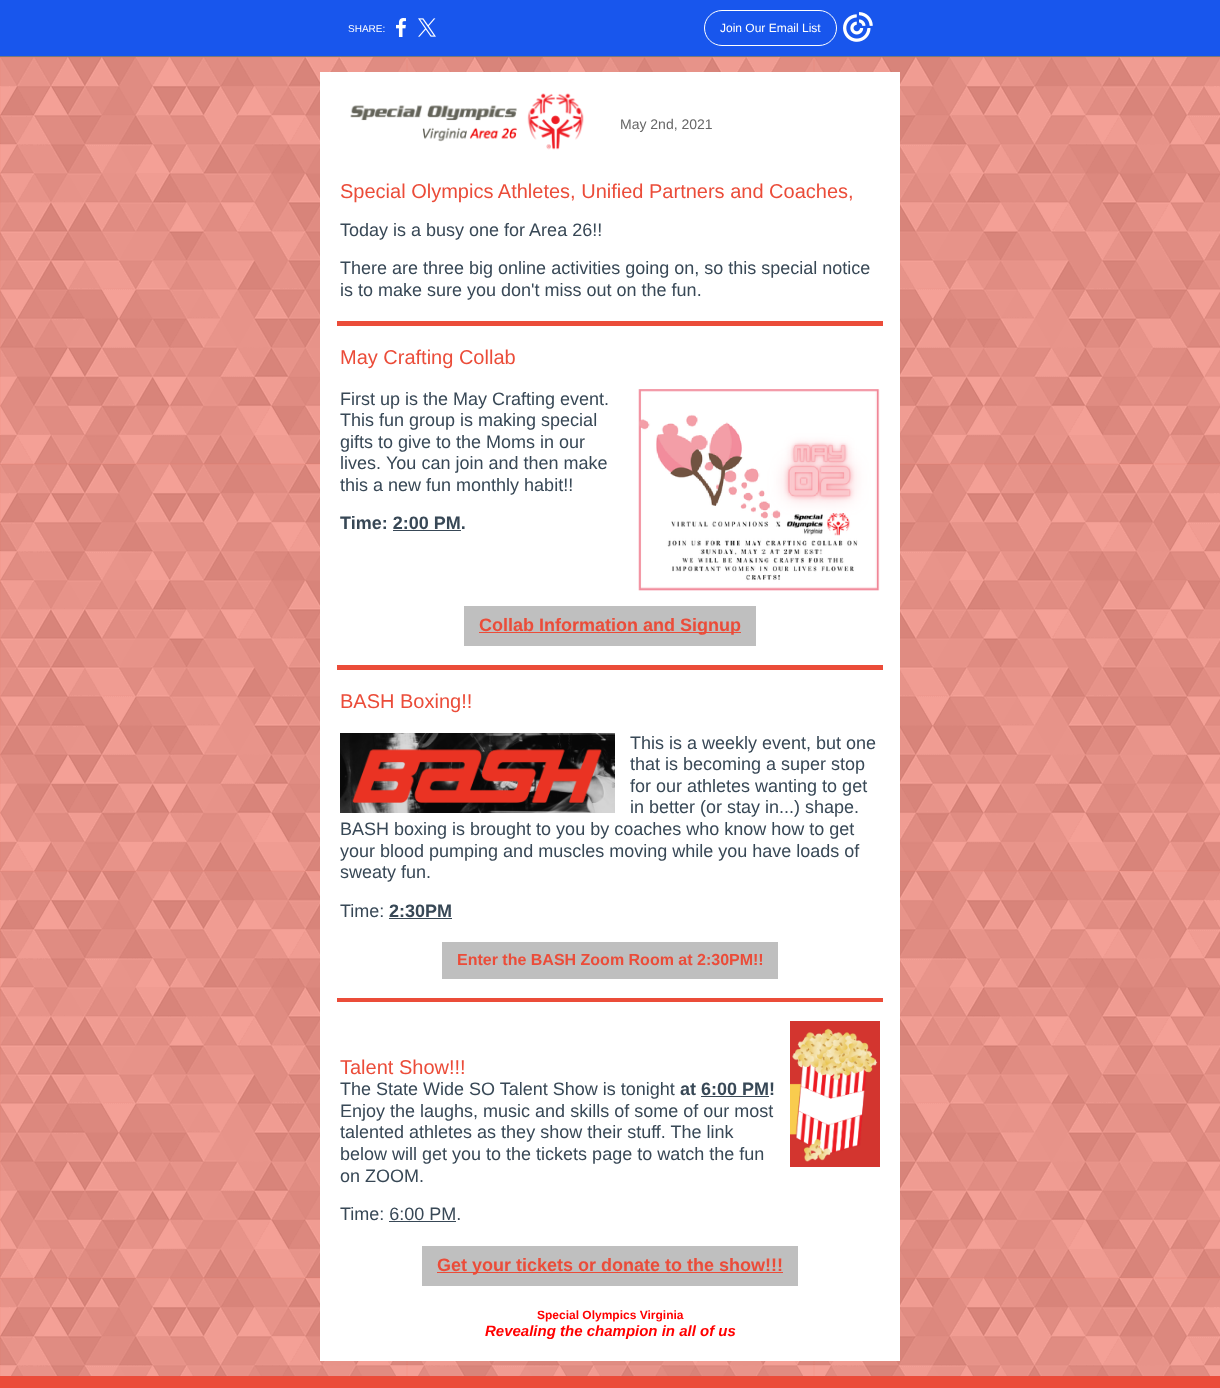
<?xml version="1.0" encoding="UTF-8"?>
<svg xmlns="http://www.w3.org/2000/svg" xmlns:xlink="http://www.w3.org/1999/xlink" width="1220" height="1388">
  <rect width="100%" height="100%" fill="#eb4c39" />
  <rect width="1220" height="56" fill="#1856ed" />
  <rect y="56" width="1220" height="1" fill="#7a7a7a" />
  <image x="396" y="18" width="10" height="19" xlink:href="image1.png" />
  <image x="418" y="18" width="18" height="19" xlink:href="image2.png" />
  <rect x="704.5" y="10.5" width="132" height="35" rx="17.5" fill="none" stroke="#ffffff" />
  <image x="843" y="12" width="30" height="30" xlink:href="image3.png" />
  <image x="0" y="57" width="1220" height="1319" xlink:href="image4.png" />
  <rect x="320" y="72" width="580" height="1289" fill="#ffffff" />
  <image x="350" y="93" width="234" height="57" xlink:href="image5.png" />
  <rect x="337" y="321" width="546" height="5" fill="#eb4c39" />
  <rect x="393" y="530" width="68" height="1" fill="#384856" />
  <image x="638" y="389" width="242" height="202" xlink:href="image6.png" />
  <rect x="464" y="606" width="292" height="40" fill="#bfbfbf" />
  <rect x="479" y="632" width="262" height="1" fill="#eb4c39" />
  <rect x="337" y="665" width="546" height="5" fill="#eb4c39" />
  <image x="340" y="733" width="275" height="80" xlink:href="image7.png" />
  <rect x="389" y="918" width="63" height="1" fill="#384856" />
  <rect x="442" y="942" width="336" height="37" fill="#bfbfbf" />
  <rect x="337" y="998" width="546" height="4" fill="#eb4c39" />
  <rect x="701" y="1096" width="68" height="1" fill="#384856" />
  <rect x="389" y="1221" width="67" height="1" fill="#384856" />
  <image x="790" y="1021" width="90" height="146" xlink:href="image8.png" />
  <rect x="422" y="1246" width="376" height="40" fill="#bfbfbf" />
  <rect x="437" y="1272" width="346" height="1" fill="#eb4c39" />
  <text x="348" y="32" style="font-family: Liberation Sans; font-size: 10px; fill: #ffffff">SHARE:</text>
  <text x="720" y="32" style="font-family: Liberation Sans; font-size: 12px; fill: #ffffff">Join Our Email List</text>
  <text x="620" y="129" style="font-family: Liberation Sans; font-size: 14px; fill: #666666">May 2nd, 2021</text>
  <text x="340" y="198" style="font-family: Liberation Sans; font-size: 20px; fill: #eb4c39">Special Olympics Athletes, Unified Partners and Coaches,</text>
  <text x="340" y="236" style="font-family: Liberation Sans; font-size: 18px; fill: #384856">Today is a busy one for Area 26!!</text>
  <text x="340" y="274" style="font-family: Liberation Sans; font-size: 18px; fill: #384856">There are three big online activities going on, so this special notice</text>
  <text x="340" y="296" style="font-family: Liberation Sans; font-size: 18px; fill: #384856">is to make sure you don't miss out on the fun.</text>
  <text x="340" y="364" style="font-family: Liberation Sans; font-size: 20px; fill: #eb4c39">May Crafting Collab</text>
  <text x="340" y="405" style="font-family: Liberation Sans; font-size: 18px; fill: #384856">First up is the May Crafting event.</text>
  <text x="340" y="426" style="font-family: Liberation Sans; font-size: 18px; fill: #384856">This fun group is making special</text>
  <text x="340" y="448" style="font-family: Liberation Sans; font-size: 18px; fill: #384856">gifts to give to the Moms in our</text>
  <text x="340" y="469" style="font-family: Liberation Sans; font-size: 18px; fill: #384856">lives.</text>
  <text x="386" y="469" style="font-family: Liberation Sans; font-size: 18px; fill: #384856">You can join and then make</text>
  <text x="340" y="491" style="font-family: Liberation Sans; font-size: 18px; fill: #384856">this a new fun monthly habit!!</text>
  <text x="340" y="529" style="font-family: Liberation Sans; font-size: 18px; font-weight: bold; fill: #384856">Time: 2:00 PM.</text>
  <text x="479" y="631" style="font-family: Liberation Sans; font-size: 18px; font-weight: bold; fill: #eb4c39">Collab Information and Signup</text>
  <text x="340" y="708" style="font-family: Liberation Sans; font-size: 20px; fill: #eb4c39">BASH Boxing!!</text>
  <text x="630" y="749" style="font-family: Liberation Sans; font-size: 18px; fill: #384856">This is a weekly event, but one</text>
  <text x="630" y="770" style="font-family: Liberation Sans; font-size: 18px; fill: #384856">that is becoming a super stop</text>
  <text x="630" y="792" style="font-family: Liberation Sans; font-size: 18px; fill: #384856">for our athletes wanting to get</text>
  <text x="630" y="813" style="font-family: Liberation Sans; font-size: 18px; fill: #384856">in better (or stay in...) shape.</text>
  <text x="340" y="835" style="font-family: Liberation Sans; font-size: 18px; fill: #384856">BASH boxing is brought to you by coaches who know how to get</text>
  <text x="340" y="857" style="font-family: Liberation Sans; font-size: 18px; fill: #384856">your blood pumping and muscles moving while you have loads of</text>
  <text x="340" y="878" style="font-family: Liberation Sans; font-size: 18px; fill: #384856">sweaty fun.</text>
  <text x="340" y="917" style="font-family: Liberation Sans; font-size: 18px; fill: #384856">Time:</text>
  <text x="389" y="917" style="font-family: Liberation Sans; font-size: 18px; font-weight: bold; fill: #384856">2:30PM</text>
  <text x="457" y="965" style="font-family: Liberation Sans; font-size: 16px; font-weight: bold; fill: #eb4c39">Enter the BASH Zoom Room at 2:30PM!!</text>
  <text x="340" y="1074" style="font-family: Liberation Sans; font-size: 20px; fill: #eb4c39">Talent Show!!!</text>
  <text x="340" y="1095" style="font-family: Liberation Sans; font-size: 18px; fill: #384856">The State Wide SO Talent Show is tonight</text>
  <text x="680" y="1095" style="font-family: Liberation Sans; font-size: 18px; font-weight: bold; fill: #384856">at 6:00 PM!</text>
  <text x="340" y="1117" style="font-family: Liberation Sans; font-size: 18px; fill: #384856">Enjoy the laughs, music and skills of some of our most</text>
  <text x="340" y="1138" style="font-family: Liberation Sans; font-size: 18px; fill: #384856">talented athletes as they show their stuff. The link</text>
  <text x="340" y="1160" style="font-family: Liberation Sans; font-size: 18px; fill: #384856">below will get you to the tickets page to watch the fun</text>
  <text x="340" y="1182" style="font-family: Liberation Sans; font-size: 18px; fill: #384856">on ZOOM.</text>
  <text x="340" y="1220" style="font-family: Liberation Sans; font-size: 18px; fill: #384856">Time: 6:00 PM.</text>
  <text x="437" y="1271" style="font-family: Liberation Sans; font-size: 18px; font-weight: bold; fill: #eb4c39">Get your tickets or donate to the show!!!</text>
  <text x="537" y="1319" style="font-family: Liberation Sans; font-size: 12px; font-weight: bold; fill: #ff0000">Special Olympics Virginia</text>
  <text x="485" y="1336" style="font-family: Liberation Sans; font-size: 15px; font-weight: bold; font-style: italic; fill: #ff0000">Revealing the champion in all of us</text>
</svg>
